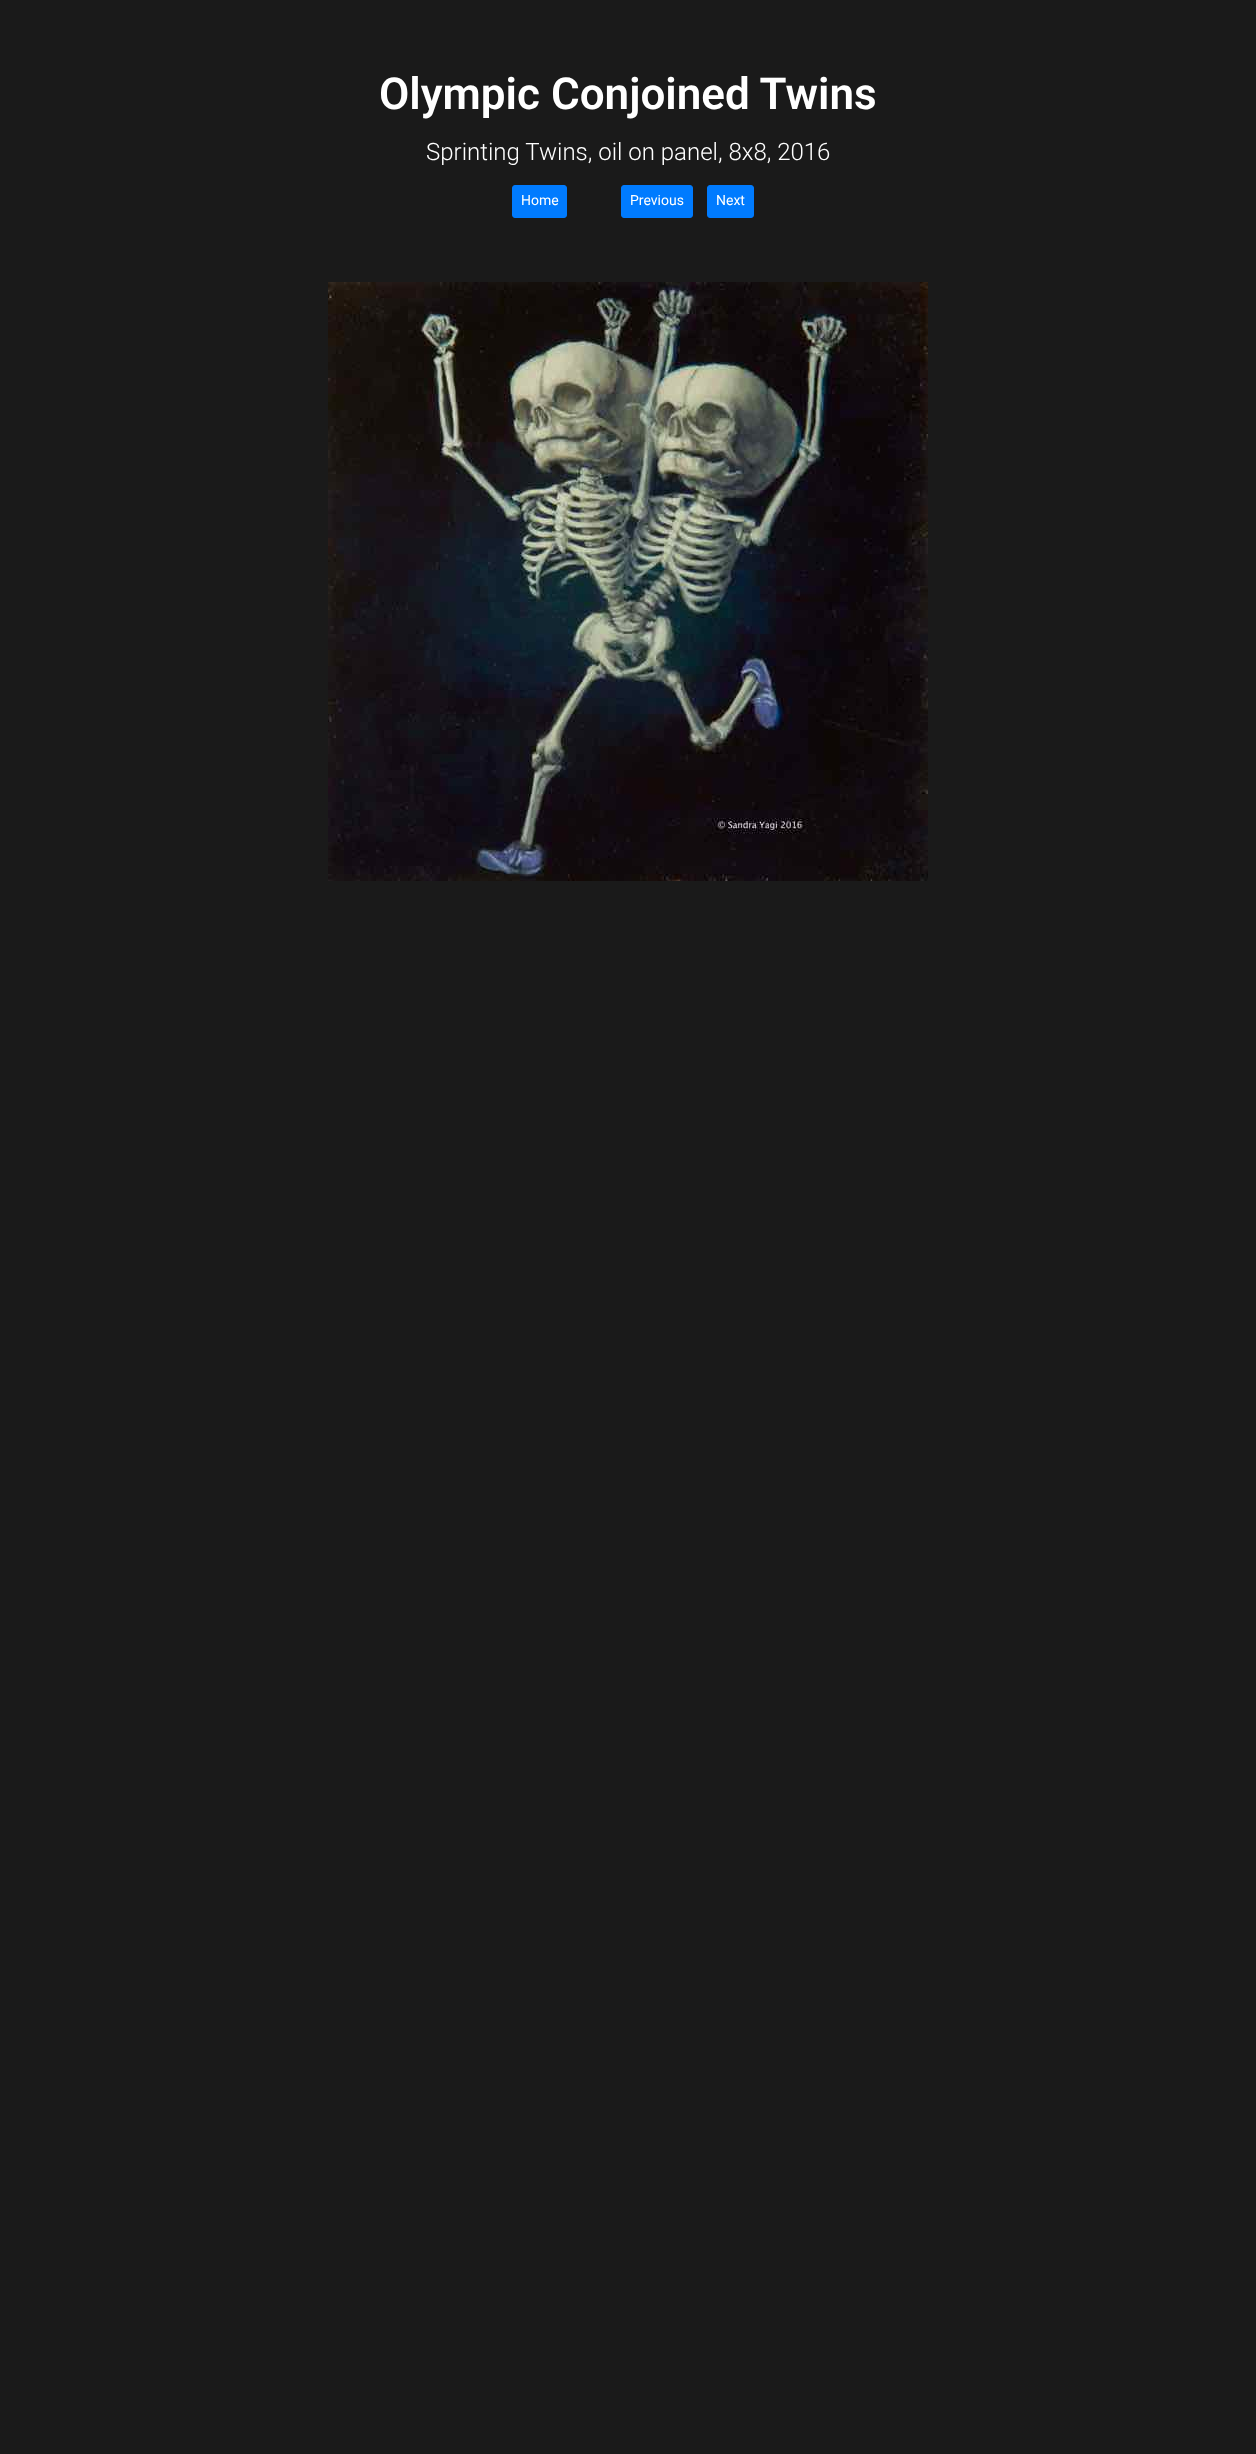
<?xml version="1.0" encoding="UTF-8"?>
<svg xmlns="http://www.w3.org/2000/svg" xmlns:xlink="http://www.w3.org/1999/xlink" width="1256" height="2454">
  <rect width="100%" height="100%" fill="#1a1a1a" />
  <rect x="512.5" y="185.5" width="54" height="32" rx="2.5" fill="#007bff" stroke="#007bff" />
  <rect x="621.5" y="185.5" width="71" height="32" rx="2.5" fill="#007bff" stroke="#007bff" />
  <rect x="707.5" y="185.5" width="46" height="32" rx="2.5" fill="#007bff" stroke="#007bff" />
  <image x="328" y="282" width="600" height="599" xlink:href="image1.png" />
  <text x="379" y="109" style="font-family: Roboto; font-size: 44px; font-weight: 600; fill: #ffffff">Olympic Conjoined Twins</text>
  <text x="426" y="160" style="font-family: Roboto; font-size: 24px; font-weight: 300; fill: #ffffff">Sprinting Twins, oil on panel, 8x8, 2016</text>
  <text x="521" y="205" style="font-family: Roboto; font-size: 14px; fill: #ffffff">Home</text>
  <text x="630" y="205" style="font-family: Roboto; font-size: 14px; fill: #ffffff">Previous</text>
  <text x="716" y="205" style="font-family: Roboto; font-size: 14px; fill: #ffffff">Next</text>
</svg>
